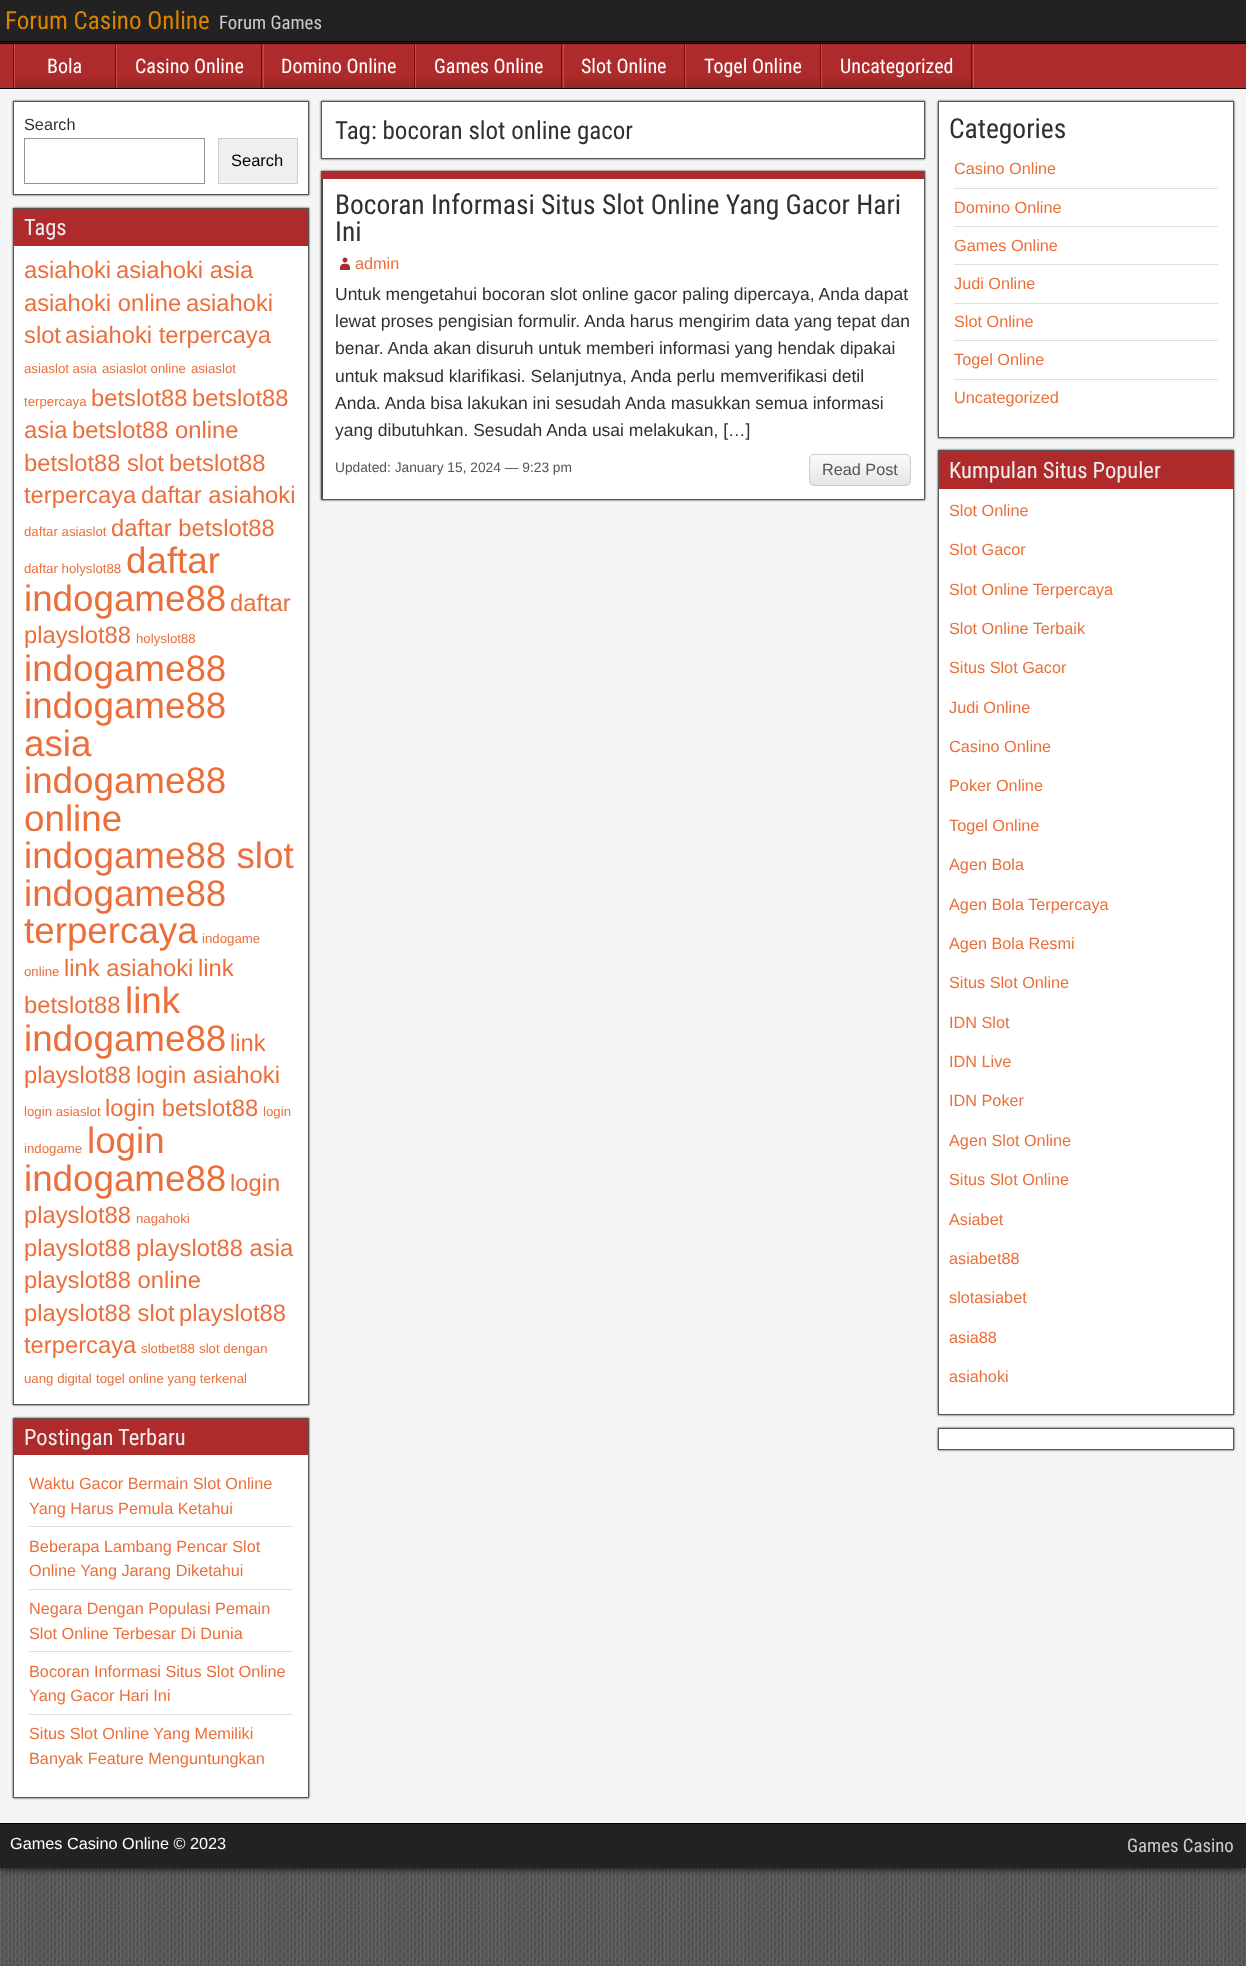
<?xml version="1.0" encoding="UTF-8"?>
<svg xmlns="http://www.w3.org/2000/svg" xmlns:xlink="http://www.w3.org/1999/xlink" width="1246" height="1966">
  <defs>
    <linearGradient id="g1" gradientUnits="userSpaceOnUse" x1="65" y1="44" x2="65" y2="88"><stop offset="0.7" stop-color="#af2b2b" /><stop offset="1" stop-color="#952525" /></linearGradient>
    <linearGradient id="g2" gradientUnits="userSpaceOnUse" x1="189" y1="44" x2="189" y2="88"><stop offset="0.7" stop-color="#af2b2b" /><stop offset="1" stop-color="#952525" /></linearGradient>
    <linearGradient id="g3" gradientUnits="userSpaceOnUse" x1="339" y1="44" x2="339" y2="88"><stop offset="0.7" stop-color="#af2b2b" /><stop offset="1" stop-color="#952525" /></linearGradient>
    <linearGradient id="g4" gradientUnits="userSpaceOnUse" x1="489" y1="44" x2="489" y2="88"><stop offset="0.7" stop-color="#af2b2b" /><stop offset="1" stop-color="#952525" /></linearGradient>
    <linearGradient id="g5" gradientUnits="userSpaceOnUse" x1="624" y1="44" x2="624" y2="88"><stop offset="0.7" stop-color="#af2b2b" /><stop offset="1" stop-color="#952525" /></linearGradient>
    <linearGradient id="g6" gradientUnits="userSpaceOnUse" x1="753" y1="44" x2="753" y2="88"><stop offset="0.7" stop-color="#af2b2b" /><stop offset="1" stop-color="#952525" /></linearGradient>
    <linearGradient id="g7" gradientUnits="userSpaceOnUse" x1="897" y1="44" x2="897" y2="88"><stop offset="0.7" stop-color="#af2b2b" /><stop offset="1" stop-color="#952525" /></linearGradient>
    <clipPath id="clip1"><rect x="809" y="454" width="102" height="32" rx="5" /></clipPath>
    <linearGradient id="g8" gradientUnits="userSpaceOnUse" x1="860" y1="455" x2="860" y2="485"><stop offset="0" stop-color="#fbfbfb" /><stop offset="1" stop-color="#e5e5e5" /></linearGradient>
  </defs>
  <rect width="100%" height="100%" fill="#505050" />
  <image x="0" y="1868" width="1246" height="98" xlink:href="image1.png" />
  <rect width="1246" height="1868" fill="#000000" filter="blur(4px)" />
  <rect width="1246" height="43" fill="#222222" />
  <rect y="41" width="1246" height="1" fill="#000000" />
  <rect y="43" width="1246" height="1" fill="#000000" />
  <rect y="44" width="1246" height="44" fill="#af2b2b" />
  <rect y="88" width="1246" height="1" fill="#000000" />
  <rect x="973" y="44" width="1" height="44" fill="#cd4949" />
  <rect x="13" y="44" width="1" height="44" fill="#870303" />
  <rect x="15" y="76" width="100" height="12" fill="url(#g1)" />
  <rect x="115" y="44" width="1" height="44" fill="#870303" />
  <rect x="14" y="44" width="1" height="44" fill="#cd4949" />
  <rect x="117" y="76" width="146" height="12" fill="url(#g2)" />
  <rect x="261" y="44" width="1" height="44" fill="#870303" />
  <rect x="116" y="44" width="1" height="44" fill="#cd4949" />
  <rect x="264" y="76" width="150" height="12" fill="url(#g3)" />
  <rect x="414" y="44" width="1" height="44" fill="#870303" />
  <rect x="263" y="44" width="1" height="44" fill="#cd4949" />
  <rect x="416" y="76" width="147" height="12" fill="url(#g4)" />
  <rect x="561" y="44" width="1" height="44" fill="#870303" />
  <rect x="415" y="44" width="1" height="44" fill="#cd4949" />
  <rect x="564" y="76" width="120" height="12" fill="url(#g5)" />
  <rect x="684" y="44" width="1" height="44" fill="#870303" />
  <rect x="563" y="44" width="1" height="44" fill="#cd4949" />
  <rect x="686" y="76" width="134" height="12" fill="url(#g6)" />
  <rect x="820" y="44" width="1" height="44" fill="#870303" />
  <rect x="685" y="44" width="1" height="44" fill="#cd4949" />
  <rect x="822" y="76" width="151" height="12" fill="url(#g7)" />
  <rect x="971" y="44" width="1" height="44" fill="#870303" />
  <rect x="821" y="44" width="1" height="44" fill="#cd4949" />
  <rect y="89" width="1246" height="1734" fill="#f5f5f5" />
  <rect x="13" y="101" width="296" height="94" fill="#333333" filter="blur(1px)" />
  <rect x="13.5" y="101.5" width="295" height="93" fill="#ffffff" stroke="#555555" />
  <rect x="24.5" y="138.5" width="180" height="45" fill="none" stroke="#949494" />
  <rect x="218.5" y="138.5" width="79" height="45" fill="#efefef" stroke="#cccccc" />
  <rect x="13" y="208" width="296" height="1197" fill="#333333" filter="blur(1px)" />
  <rect x="14" y="246" width="294" height="1158" fill="#ffffff" />
  <rect x="13.5" y="208.5" width="295" height="1196" fill="none" stroke="#555555" />
  <rect x="14" y="209" width="294" height="37" fill="#af2b2b" />
  <rect x="13" y="1418" width="296" height="380" fill="#333333" filter="blur(1px)" />
  <rect x="14" y="1455" width="294" height="342" fill="#ffffff" />
  <rect x="13.5" y="1418.5" width="295" height="379" fill="none" stroke="#555555" />
  <rect x="14" y="1419" width="294" height="36" fill="#af2b2b" />
  <rect x="29" y="1526" width="264" height="1" fill="#e0e0e0" />
  <rect x="29" y="1589" width="264" height="1" fill="#e0e0e0" />
  <rect x="29" y="1651" width="264" height="1" fill="#e0e0e0" />
  <rect x="29" y="1714" width="264" height="1" fill="#e0e0e0" />
  <rect x="321" y="101" width="604" height="58" fill="#333333" filter="blur(1px)" />
  <rect x="321.5" y="101.5" width="603" height="57" fill="#ffffff" stroke="#555555" />
  <rect x="321" y="171" width="604" height="329" fill="#333333" filter="blur(1px)" />
  <rect x="323" y="179" width="601" height="320" fill="#ffffff" />
  <path d="M 321 171 h 604 l -1 8 h -602 z" fill="#af2b2b" />
  <path d="M 925 171 v 329 l -1 -1 v -320 z" fill="#555555" />
  <rect x="321" y="499" width="604" height="1" fill="#555555" />
  <path d="M 321 500 v -329 l 1 8 v 320 z" fill="#555555" />
  <image x="340" y="257" width="10" height="13" xlink:href="image2.png" />
  <g clip-path="url(#clip1)">
    <rect x="809" y="455" width="102" height="30" fill="url(#g8)" />
  </g>
  <rect x="809.5" y="454.5" width="101" height="31" rx="4.5" fill="none" stroke="#cccccc" />
  <rect x="938" y="101" width="296" height="337" fill="#333333" filter="blur(1px)" />
  <rect x="938.5" y="101.5" width="295" height="336" fill="#ffffff" stroke="#555555" />
  <rect x="954" y="188" width="264" height="1" fill="#e0e0e0" />
  <rect x="954" y="226" width="264" height="1" fill="#e0e0e0" />
  <rect x="954" y="264" width="264" height="1" fill="#e0e0e0" />
  <rect x="954" y="303" width="264" height="1" fill="#e0e0e0" />
  <rect x="954" y="340" width="264" height="1" fill="#e0e0e0" />
  <rect x="954" y="379" width="264" height="1" fill="#e0e0e0" />
  <rect x="938" y="450" width="296" height="965" fill="#333333" filter="blur(1px)" />
  <rect x="939" y="489" width="294" height="925" fill="#ffffff" />
  <rect x="938.5" y="450.5" width="295" height="964" fill="none" stroke="#555555" />
  <rect x="939" y="451" width="294" height="38" fill="#af2b2b" />
  <rect x="938" y="1428" width="296" height="22" fill="#333333" filter="blur(1px)" />
  <rect x="938.5" y="1428.5" width="295" height="21" fill="#ffffff" stroke="#555555" />
  <rect y="1824" width="1246" height="44" fill="#222222" />
  <rect y="1823" width="1246" height="1" fill="#000000" />
  <text x="5" y="29" style="font-family: Roboto Condensed; font-size: 25px; fill: #dc8300">Forum Casino Online</text>
  <text x="219" y="29" style="font-family: Roboto Condensed; font-size: 18.75px; fill: #cccccc">Forum Games</text>
  <text x="47" y="73" style="font-family: Roboto Condensed; font-size: 20px; fill: #ffffff">Bola</text>
  <text x="135" y="73" style="font-family: Roboto Condensed; font-size: 20px; fill: #ffffff">Casino Online</text>
  <text x="281" y="73" style="font-family: Roboto Condensed; font-size: 20px; fill: #ffffff">Domino Online</text>
  <text x="434" y="73" style="font-family: Roboto Condensed; font-size: 20px; fill: #ffffff">Games Online</text>
  <text x="581" y="73" style="font-family: Roboto Condensed; font-size: 20px; fill: #ffffff">Slot Online</text>
  <text x="704" y="73" style="font-family: Roboto Condensed; font-size: 20px; fill: #ffffff">Togel Online</text>
  <text x="840" y="73" style="font-family: Roboto Condensed; font-size: 20px; fill: #ffffff">Uncategorized</text>
  <text x="24" y="130" style="font-family: Liberation Sans; font-size: 16.25px; fill: #303030">Search</text>
  <text x="231" y="166" style="font-family: Liberation Sans; font-size: 16.5px; fill: #000000">Search</text>
  <text x="24" y="235" style="font-family: Roboto Condensed; font-size: 22.5px; fill: #eeeeee">Tags</text>
  <text x="24" y="278" style="font-family: Liberation Sans; font-size: 23.75px; fill: #ea6f3a">asiahoki</text>
  <text x="116" y="278" style="font-family: Liberation Sans; font-size: 23.75px; fill: #ea6f3a">asiahoki asia</text>
  <text x="24" y="311" style="font-family: Liberation Sans; font-size: 23.75px; fill: #ea6f3a">asiahoki online</text>
  <text x="186" y="311" style="font-family: Liberation Sans; font-size: 23.75px; fill: #ea6f3a">asiahoki</text>
  <text x="24" y="343" style="font-family: Liberation Sans; font-size: 23.75px; fill: #ea6f3a">slot</text>
  <text x="65" y="343" style="font-family: Liberation Sans; font-size: 23.75px; fill: #ea6f3a">asiahoki terpercaya</text>
  <text x="24" y="373" style="font-family: Liberation Sans; font-size: 13.25px; fill: #ea6f3a">asiaslot asia</text>
  <text x="102" y="373" style="font-family: Liberation Sans; font-size: 13.25px; fill: #ea6f3a">asiaslot online</text>
  <text x="191" y="373" style="font-family: Liberation Sans; font-size: 13.25px; fill: #ea6f3a">asiaslot</text>
  <text x="24" y="406" style="font-family: Liberation Sans; font-size: 13.25px; fill: #ea6f3a">terpercaya</text>
  <text x="91" y="406" style="font-family: Liberation Sans; font-size: 23.75px; fill: #ea6f3a">betslot88</text>
  <text x="192" y="406" style="font-family: Liberation Sans; font-size: 23.75px; fill: #ea6f3a">betslot88</text>
  <text x="24" y="438" style="font-family: Liberation Sans; font-size: 23.75px; fill: #ea6f3a">asia</text>
  <text x="72" y="438" style="font-family: Liberation Sans; font-size: 23.75px; fill: #ea6f3a">betslot88 online</text>
  <text x="24" y="471" style="font-family: Liberation Sans; font-size: 23.75px; fill: #ea6f3a">betslot88 slot</text>
  <text x="169" y="471" style="font-family: Liberation Sans; font-size: 23.75px; fill: #ea6f3a">betslot88</text>
  <text x="24" y="503" style="font-family: Liberation Sans; font-size: 23.75px; fill: #ea6f3a">terpercaya</text>
  <text x="141" y="503" style="font-family: Liberation Sans; font-size: 23.75px; fill: #ea6f3a">daftar asiahoki</text>
  <text x="24" y="536" style="font-family: Liberation Sans; font-size: 13.25px; fill: #ea6f3a">daftar asiaslot</text>
  <text x="111" y="536" style="font-family: Liberation Sans; font-size: 23.75px; fill: #ea6f3a">daftar betslot88</text>
  <text x="24" y="573" style="font-family: Liberation Sans; font-size: 13.25px; fill: #ea6f3a">daftar holyslot88</text>
  <text x="126" y="573" style="font-family: Liberation Sans; font-size: 36.75px; fill: #ea6f3a">daftar</text>
  <text x="24" y="611" style="font-family: Liberation Sans; font-size: 36.75px; fill: #ea6f3a">indogame88</text>
  <text x="230" y="611" style="font-family: Liberation Sans; font-size: 23.75px; fill: #ea6f3a">daftar</text>
  <text x="24" y="643" style="font-family: Liberation Sans; font-size: 23.75px; fill: #ea6f3a">playslot88</text>
  <text x="136" y="643" style="font-family: Liberation Sans; font-size: 13.25px; fill: #ea6f3a">holyslot88</text>
  <text x="24" y="681" style="font-family: Liberation Sans; font-size: 36.75px; fill: #ea6f3a">indogame88</text>
  <text x="24" y="718" style="font-family: Liberation Sans; font-size: 36.75px; fill: #ea6f3a">indogame88</text>
  <text x="24" y="756" style="font-family: Liberation Sans; font-size: 36.75px; fill: #ea6f3a">asia</text>
  <text x="24" y="793" style="font-family: Liberation Sans; font-size: 36.75px; fill: #ea6f3a">indogame88</text>
  <text x="24" y="831" style="font-family: Liberation Sans; font-size: 36.75px; fill: #ea6f3a">online</text>
  <text x="24" y="868" style="font-family: Liberation Sans; font-size: 36.75px; fill: #ea6f3a">indogame88 slot</text>
  <text x="24" y="906" style="font-family: Liberation Sans; font-size: 36.75px; fill: #ea6f3a">indogame88</text>
  <text x="24" y="943" style="font-family: Liberation Sans; font-size: 36.75px; fill: #ea6f3a">terpercaya</text>
  <text x="202" y="943" style="font-family: Liberation Sans; font-size: 13.25px; fill: #ea6f3a">indogame</text>
  <text x="24" y="976" style="font-family: Liberation Sans; font-size: 13.25px; fill: #ea6f3a">online</text>
  <text x="64" y="976" style="font-family: Liberation Sans; font-size: 23.75px; fill: #ea6f3a">link asiahoki</text>
  <text x="198" y="976" style="font-family: Liberation Sans; font-size: 23.75px; fill: #ea6f3a">link</text>
  <text x="24" y="1013" style="font-family: Liberation Sans; font-size: 23.75px; fill: #ea6f3a">betslot88</text>
  <text x="125" y="1013" style="font-family: Liberation Sans; font-size: 36.75px; fill: #ea6f3a">link</text>
  <text x="24" y="1051" style="font-family: Liberation Sans; font-size: 36.75px; fill: #ea6f3a">indogame88</text>
  <text x="230" y="1051" style="font-family: Liberation Sans; font-size: 23.75px; fill: #ea6f3a">link</text>
  <text x="24" y="1083" style="font-family: Liberation Sans; font-size: 23.75px; fill: #ea6f3a">playslot88</text>
  <text x="136" y="1083" style="font-family: Liberation Sans; font-size: 23.75px; fill: #ea6f3a">login asiahoki</text>
  <text x="24" y="1116" style="font-family: Liberation Sans; font-size: 13.25px; fill: #ea6f3a">login asiaslot</text>
  <text x="105" y="1116" style="font-family: Liberation Sans; font-size: 23.75px; fill: #ea6f3a">login betslot88</text>
  <text x="263" y="1116" style="font-family: Liberation Sans; font-size: 13.25px; fill: #ea6f3a">login</text>
  <text x="24" y="1153" style="font-family: Liberation Sans; font-size: 13.25px; fill: #ea6f3a">indogame</text>
  <text x="87" y="1153" style="font-family: Liberation Sans; font-size: 36.75px; fill: #ea6f3a">login</text>
  <text x="24" y="1191" style="font-family: Liberation Sans; font-size: 36.75px; fill: #ea6f3a">indogame88</text>
  <text x="230" y="1191" style="font-family: Liberation Sans; font-size: 23.75px; fill: #ea6f3a">login</text>
  <text x="24" y="1223" style="font-family: Liberation Sans; font-size: 23.75px; fill: #ea6f3a">playslot88</text>
  <text x="136" y="1223" style="font-family: Liberation Sans; font-size: 13.25px; fill: #ea6f3a">nagahoki</text>
  <text x="24" y="1256" style="font-family: Liberation Sans; font-size: 23.75px; fill: #ea6f3a">playslot88</text>
  <text x="136" y="1256" style="font-family: Liberation Sans; font-size: 23.75px; fill: #ea6f3a">playslot88 asia</text>
  <text x="24" y="1288" style="font-family: Liberation Sans; font-size: 23.75px; fill: #ea6f3a">playslot88 online</text>
  <text x="24" y="1321" style="font-family: Liberation Sans; font-size: 23.75px; fill: #ea6f3a">playslot88 slot</text>
  <text x="179" y="1321" style="font-family: Liberation Sans; font-size: 23.75px; fill: #ea6f3a">playslot88</text>
  <text x="24" y="1353" style="font-family: Liberation Sans; font-size: 23.75px; fill: #ea6f3a">terpercaya</text>
  <text x="141" y="1353" style="font-family: Liberation Sans; font-size: 13.25px; fill: #ea6f3a">slotbet88</text>
  <text x="199" y="1353" style="font-family: Liberation Sans; font-size: 13.25px; fill: #ea6f3a">slot dengan</text>
  <text x="24" y="1383" style="font-family: Liberation Sans; font-size: 13.25px; fill: #ea6f3a">uang digital</text>
  <text x="96" y="1383" style="font-family: Liberation Sans; font-size: 13.25px; fill: #ea6f3a">togel online yang terkenal</text>
  <text x="24" y="1445" style="font-family: Roboto Condensed; font-size: 22.5px; fill: #eeeeee">Postingan Terbaru</text>
  <text x="29" y="1489" style="font-family: Liberation Sans; font-size: 16.25px; fill: #ea6f3a">Waktu Gacor Bermain Slot Online</text>
  <text x="29" y="1514" style="font-family: Liberation Sans; font-size: 16.25px; fill: #ea6f3a">Yang Harus Pemula Ketahui</text>
  <text x="29" y="1552" style="font-family: Liberation Sans; font-size: 16.25px; fill: #ea6f3a">Beberapa Lambang Pencar Slot</text>
  <text x="29" y="1576" style="font-family: Liberation Sans; font-size: 16.25px; fill: #ea6f3a">Online Yang Jarang Diketahui</text>
  <text x="29" y="1614" style="font-family: Liberation Sans; font-size: 16.25px; fill: #ea6f3a">Negara Dengan Populasi Pemain</text>
  <text x="29" y="1639" style="font-family: Liberation Sans; font-size: 16.25px; fill: #ea6f3a">Slot Online Terbesar Di Dunia</text>
  <text x="29" y="1677" style="font-family: Liberation Sans; font-size: 16.25px; fill: #ea6f3a">Bocoran Informasi Situs Slot Online</text>
  <text x="29" y="1701" style="font-family: Liberation Sans; font-size: 16.25px; fill: #ea6f3a">Yang Gacor Hari Ini</text>
  <text x="29" y="1739" style="font-family: Liberation Sans; font-size: 16.25px; fill: #ea6f3a">Situs Slot Online Yang Memiliki</text>
  <text x="29" y="1764" style="font-family: Liberation Sans; font-size: 16.25px; fill: #ea6f3a">Banyak Feature Menguntungkan</text>
  <text x="335" y="139" style="font-family: Roboto Condensed; font-size: 25px; fill: #303030">Tag: bocoran slot online gacor</text>
  <text x="335" y="214" style="font-family: Roboto Condensed; font-size: 27.5px; fill: #303030">Bocoran Informasi Situs Slot Online Yang Gacor Hari</text>
  <text x="335" y="241" style="font-family: Roboto Condensed; font-size: 27.5px; fill: #303030">Ini</text>
  <text x="355" y="269" style="font-family: Liberation Sans; font-size: 16.25px; fill: #ea6f3a">admin</text>
  <text x="335" y="300" style="font-family: Arimo; font-size: 17.5px; fill: #303030">Untuk mengetahui bocoran slot online gacor paling dipercaya, Anda dapat</text>
  <text x="335" y="327" style="font-family: Arimo; font-size: 17.5px; fill: #303030">lewat proses pengisian formulir. Anda harus mengirim data yang tepat dan</text>
  <text x="335" y="354" style="font-family: Arimo; font-size: 17.5px; fill: #303030">benar. Anda akan disuruh untuk memberi informasi yang hendak dipakai</text>
  <text x="335" y="382" style="font-family: Arimo; font-size: 17.5px; fill: #303030">untuk maksud klarifikasi. Selanjutnya, Anda perlu memverifikasi detil</text>
  <text x="335" y="409" style="font-family: Arimo; font-size: 17.5px; fill: #303030">Anda. Anda bisa lakukan ini sesudah Anda masukkan semua informasi</text>
  <text x="335" y="436" style="font-family: Arimo; font-size: 17.5px; fill: #303030">yang dibutuhkan. Sesudah Anda usai melakukan, […]</text>
  <text x="335" y="472" style="font-family: Liberation Sans; font-size: 13.75px; fill: #555555">Updated: January 15, 2024 — 9:23 pm</text>
  <text x="822" y="475" style="font-family: Liberation Sans; font-size: 16.25px; fill: #555555">Read Post</text>
  <text x="949" y="138" style="font-family: Roboto Condensed; font-size: 27.5px; fill: #303030">Categories</text>
  <text x="954" y="174" style="font-family: Liberation Sans; font-size: 16.25px; fill: #ea6f3a">Casino Online</text>
  <text x="954" y="213" style="font-family: Liberation Sans; font-size: 16.25px; fill: #ea6f3a">Domino Online</text>
  <text x="954" y="251" style="font-family: Liberation Sans; font-size: 16.25px; fill: #ea6f3a">Games Online</text>
  <text x="954" y="289" style="font-family: Liberation Sans; font-size: 16.25px; fill: #ea6f3a">Judi Online</text>
  <text x="954" y="327" style="font-family: Liberation Sans; font-size: 16.25px; fill: #ea6f3a">Slot Online</text>
  <text x="954" y="365" style="font-family: Liberation Sans; font-size: 16.25px; fill: #ea6f3a">Togel Online</text>
  <text x="954" y="403" style="font-family: Liberation Sans; font-size: 16.25px; fill: #ea6f3a">Uncategorized</text>
  <text x="949" y="478" style="font-family: Roboto Condensed; font-size: 22.5px; fill: #eeeeee">Kumpulan Situs Populer</text>
  <text x="949" y="516" style="font-family: Liberation Sans; font-size: 16.25px; fill: #ea6f3a">Slot Online</text>
  <text x="949" y="555" style="font-family: Liberation Sans; font-size: 16.25px; fill: #ea6f3a">Slot Gacor</text>
  <text x="949" y="595" style="font-family: Liberation Sans; font-size: 16.25px; fill: #ea6f3a">Slot Online Terpercaya</text>
  <text x="949" y="634" style="font-family: Liberation Sans; font-size: 16.25px; fill: #ea6f3a">Slot Online Terbaik</text>
  <text x="949" y="673" style="font-family: Liberation Sans; font-size: 16.25px; fill: #ea6f3a">Situs Slot Gacor</text>
  <text x="949" y="713" style="font-family: Liberation Sans; font-size: 16.25px; fill: #ea6f3a">Judi Online</text>
  <text x="949" y="752" style="font-family: Liberation Sans; font-size: 16.25px; fill: #ea6f3a">Casino Online</text>
  <text x="949" y="791" style="font-family: Liberation Sans; font-size: 16.25px; fill: #ea6f3a">Poker Online</text>
  <text x="949" y="831" style="font-family: Liberation Sans; font-size: 16.25px; fill: #ea6f3a">Togel Online</text>
  <text x="949" y="870" style="font-family: Liberation Sans; font-size: 16.25px; fill: #ea6f3a">Agen Bola</text>
  <text x="949" y="910" style="font-family: Liberation Sans; font-size: 16.25px; fill: #ea6f3a">Agen Bola Terpercaya</text>
  <text x="949" y="949" style="font-family: Liberation Sans; font-size: 16.25px; fill: #ea6f3a">Agen Bola Resmi</text>
  <text x="949" y="988" style="font-family: Liberation Sans; font-size: 16.25px; fill: #ea6f3a">Situs Slot Online</text>
  <text x="949" y="1028" style="font-family: Liberation Sans; font-size: 16.25px; fill: #ea6f3a">IDN Slot</text>
  <text x="949" y="1067" style="font-family: Liberation Sans; font-size: 16.25px; fill: #ea6f3a">IDN Live</text>
  <text x="949" y="1106" style="font-family: Liberation Sans; font-size: 16.25px; fill: #ea6f3a">IDN Poker</text>
  <text x="949" y="1146" style="font-family: Liberation Sans; font-size: 16.25px; fill: #ea6f3a">Agen Slot Online</text>
  <text x="949" y="1185" style="font-family: Liberation Sans; font-size: 16.25px; fill: #ea6f3a">Situs Slot Online</text>
  <text x="949" y="1225" style="font-family: Liberation Sans; font-size: 16.25px; fill: #ea6f3a">Asiabet</text>
  <text x="949" y="1264" style="font-family: Liberation Sans; font-size: 16.25px; fill: #ea6f3a">asiabet88</text>
  <text x="949" y="1303" style="font-family: Liberation Sans; font-size: 16.25px; fill: #ea6f3a">slotasiabet</text>
  <text x="949" y="1343" style="font-family: Liberation Sans; font-size: 16.25px; fill: #ea6f3a">asia88</text>
  <text x="949" y="1382" style="font-family: Liberation Sans; font-size: 16.25px; fill: #ea6f3a">asiahoki</text>
  <text x="10" y="1849" style="font-family: Liberation Sans; font-size: 16.25px; fill: #ffffff">Games Casino Online © 2023</text>
  <text x="1127" y="1852" style="font-family: Roboto Condensed; font-size: 18.75px; fill: #cccccc">Games Casino</text>
</svg>
